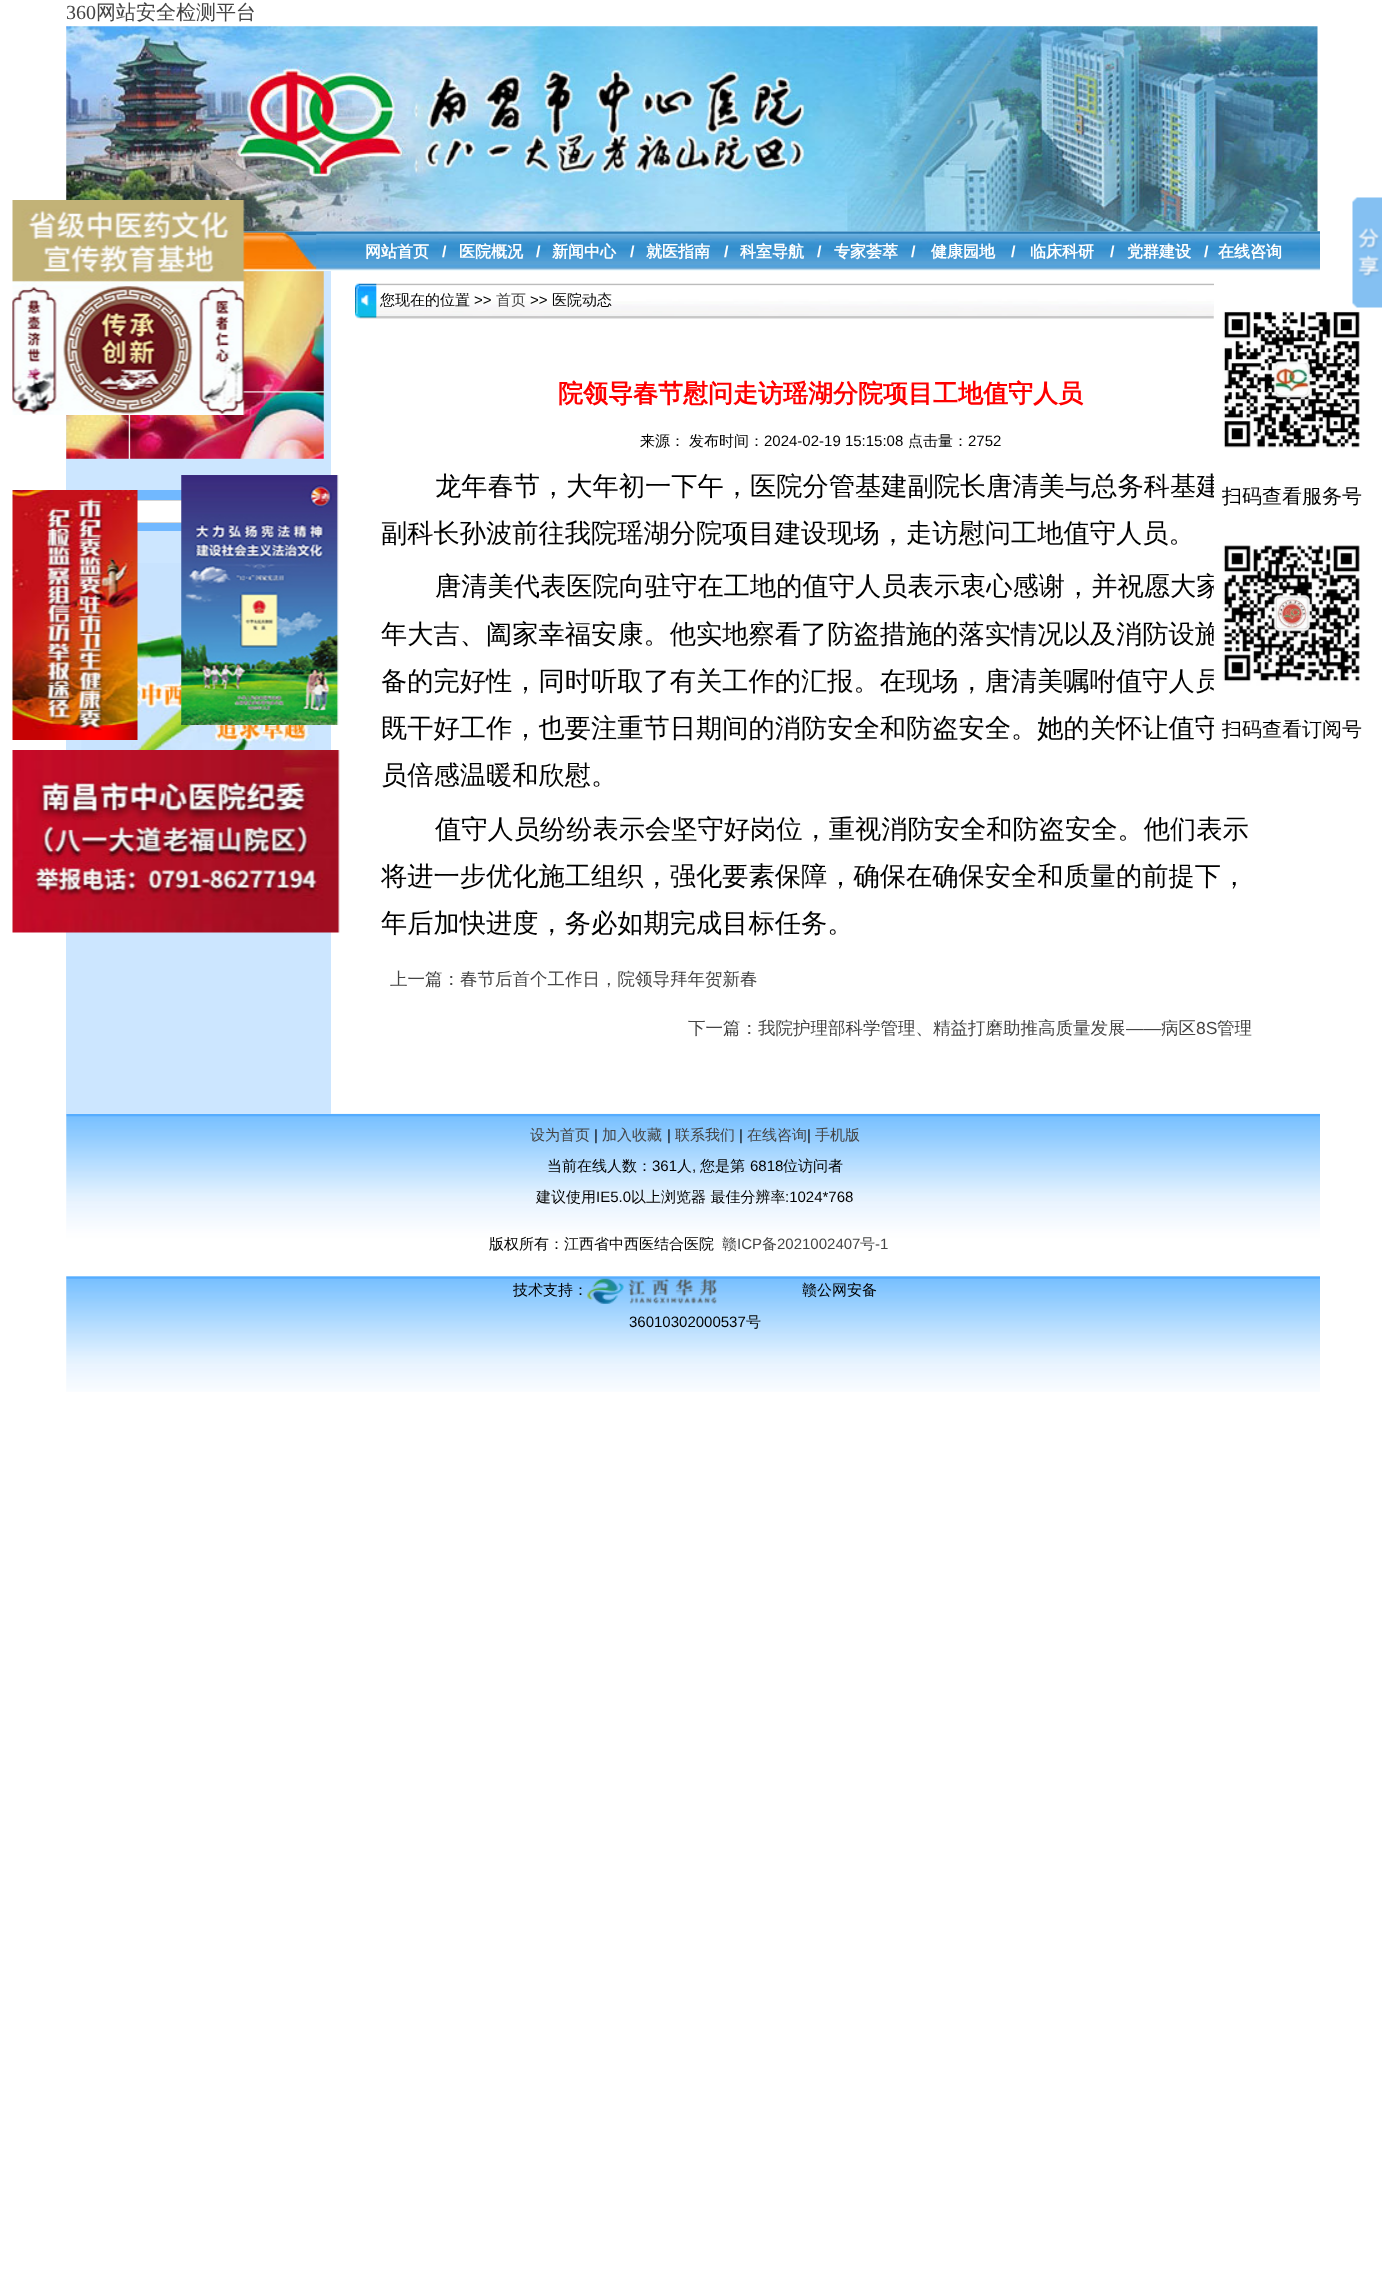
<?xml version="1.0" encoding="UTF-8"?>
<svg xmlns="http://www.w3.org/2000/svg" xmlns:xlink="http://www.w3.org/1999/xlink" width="1382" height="2270">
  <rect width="100%" height="100%" fill="#ffffff" />
  <image x="243" y="231" width="1077" height="40" xlink:href="image2.png" />
  <image x="66" y="26" width="1252" height="206" xlink:href="image1.png" />
  <image x="243" y="232" width="74" height="38" xlink:href="image3.png" />
  <image x="1352" y="197" width="30" height="111" xlink:href="image4.png" />
  <rect x="66" y="271" width="265" height="843" fill="#cce6ff" />
  <image x="66" y="271" width="258" height="188" xlink:href="image5.png" />
  <rect x="137" y="490" width="45" height="41" fill="#71b8ff" />
  <rect x="137" y="501" width="45" height="21" fill="#ffffff" />
  <rect x="99.5" y="500.5" width="156" height="22" fill="none" stroke="#d5d5d5" />
  <image x="81" y="563" width="234" height="187" xlink:href="image6.png" />
  <image x="355" y="283" width="859" height="36" xlink:href="image7.png" />
  <image x="1213" y="311" width="147" height="137" xlink:href="image8.png" />
  <image x="66" y="1113" width="1254" height="279" xlink:href="image10.png" />
  <image x="12" y="200" width="233" height="215" xlink:href="image11.png" />
  <image x="181" y="475" width="158" height="250" xlink:href="image12.png" />
  <image x="12" y="750" width="328" height="183" xlink:href="image13.png" />
  <image x="12" y="490" width="126" height="250" xlink:href="image14.png" />
  <image x="587" y="1278" width="130" height="26" xlink:href="image15.png" />
  <text x="66" y="19" style="font-family: Liberation Serif; font-size: 20px; fill: #444444">360</text>
  <text x="96" y="19" style="font-family: WenQuanYi Zen Hei; font-size: 20px; font-weight: 500; fill: #444444">网站安全检测平台</text>
  <text x="365" y="257" style="font-family: WenQuanYi Zen Hei; font-size: 16px; font-weight: bold; fill: #ffffff">网站首页</text>
  <text x="442" y="257" style="font-family: Liberation Sans; font-size: 16px; font-weight: bold; fill: #ffffff">/</text>
  <text x="459" y="257" style="font-family: WenQuanYi Zen Hei; font-size: 16px; font-weight: bold; fill: #ffffff">医院概况</text>
  <text x="536" y="257" style="font-family: Liberation Sans; font-size: 16px; font-weight: bold; fill: #ffffff">/</text>
  <text x="552" y="257" style="font-family: WenQuanYi Zen Hei; font-size: 16px; font-weight: bold; fill: #ffffff">新闻中心</text>
  <text x="630" y="257" style="font-family: Liberation Sans; font-size: 16px; font-weight: bold; fill: #ffffff">/</text>
  <text x="646" y="257" style="font-family: WenQuanYi Zen Hei; font-size: 16px; font-weight: bold; fill: #ffffff">就医指南</text>
  <text x="724" y="257" style="font-family: Liberation Sans; font-size: 16px; font-weight: bold; fill: #ffffff">/</text>
  <text x="740" y="257" style="font-family: WenQuanYi Zen Hei; font-size: 16px; font-weight: bold; fill: #ffffff">科室导航</text>
  <text x="817" y="257" style="font-family: Liberation Sans; font-size: 16px; font-weight: bold; fill: #ffffff">/</text>
  <text x="834" y="257" style="font-family: WenQuanYi Zen Hei; font-size: 16px; font-weight: bold; fill: #ffffff">专家荟萃</text>
  <text x="911" y="257" style="font-family: Liberation Sans; font-size: 16px; font-weight: bold; fill: #ffffff">/</text>
  <text x="931" y="257" style="font-family: WenQuanYi Zen Hei; font-size: 16px; font-weight: bold; fill: #ffffff">健康园地</text>
  <text x="1011" y="257" style="font-family: Liberation Sans; font-size: 16px; font-weight: bold; fill: #ffffff">/</text>
  <text x="1030" y="257" style="font-family: WenQuanYi Zen Hei; font-size: 16px; font-weight: bold; fill: #ffffff">临床科研</text>
  <text x="1110" y="257" style="font-family: Liberation Sans; font-size: 16px; font-weight: bold; fill: #ffffff">/</text>
  <text x="1127" y="257" style="font-family: WenQuanYi Zen Hei; font-size: 16px; font-weight: bold; fill: #ffffff">党群建设</text>
  <text x="1204" y="257" style="font-family: Liberation Sans; font-size: 16px; font-weight: bold; fill: #ffffff">/</text>
  <text x="1218" y="257" style="font-family: WenQuanYi Zen Hei; font-size: 16px; font-weight: bold; fill: #ffffff">在线咨询</text>
  <text x="380" y="305" style="font-family: WenQuanYi Zen Hei; font-size: 15px; font-weight: 500; fill: #000000">您现在的位置</text>
  <text x="474" y="305" style="font-family: Liberation Sans; font-size: 15px; fill: #000000">&gt;&gt;</text>
  <text x="496" y="305" style="font-family: WenQuanYi Zen Hei; font-size: 15px; font-weight: 500; fill: #444444">首页</text>
  <text x="530" y="305" style="font-family: Liberation Sans; font-size: 15px; fill: #000000">&gt;&gt;</text>
  <text x="552" y="305" style="font-family: WenQuanYi Zen Hei; font-size: 15px; font-weight: 500; fill: #000000">医院动态</text>
  <text x="558" y="402" style="font-family: WenQuanYi Zen Hei; font-size: 25px; font-weight: bold; fill: #ff0000">院领导春节慰问走访瑶湖分院项目工地值守人员</text>
  <text x="640" y="446" style="font-family: WenQuanYi Zen Hei; font-size: 15px; font-weight: 500; fill: #000000">来源：</text>
  <text x="689" y="446" style="font-family: WenQuanYi Zen Hei; font-size: 15px; font-weight: 500; fill: #000000">发布时间：</text>
  <text x="764" y="446" style="font-family: Liberation Sans; font-size: 15px; fill: #000000">2024-02-19 15:15:08</text>
  <text x="908" y="446" style="font-family: WenQuanYi Zen Hei; font-size: 15px; font-weight: 500; fill: #000000">点击量：</text>
  <text x="968" y="446" style="font-family: Liberation Sans; font-size: 15px; fill: #000000">2752</text>
  <text x="435" y="495" style="font-family: WenQuanYi Zen Hei; font-size: 26.25px; font-weight: 500; fill: #000000">龙年春节，大年初一下午，医院分管基建副院长唐清美与总务科基建</text>
  <text x="381" y="542" style="font-family: WenQuanYi Zen Hei; font-size: 26.25px; font-weight: 500; fill: #000000">副科长孙波前往我院瑶湖分院项目建设现场，走访慰问工地值守人员。</text>
  <text x="435" y="595" style="font-family: WenQuanYi Zen Hei; font-size: 26.25px; font-weight: 500; fill: #000000">唐清美代表医院向驻守在工地的值守人员表示衷心感谢，并祝愿大家</text>
  <text x="381" y="643" style="font-family: WenQuanYi Zen Hei; font-size: 26.25px; font-weight: 500; fill: #000000">年大吉、阖家幸福安康。他实地察看了防盗措施的落实情况以及消防设施</text>
  <text x="381" y="690" style="font-family: WenQuanYi Zen Hei; font-size: 26.25px; font-weight: 500; fill: #000000">备的完好性，同时听取了有关工作的汇报。在现场，唐清美嘱咐值守人员</text>
  <text x="381" y="737" style="font-family: WenQuanYi Zen Hei; font-size: 26.25px; font-weight: 500; fill: #000000">既干好工作，也要注重节日期间的消防安全和防盗安全。她的关怀让值守</text>
  <text x="381" y="784" style="font-family: WenQuanYi Zen Hei; font-size: 26.25px; font-weight: 500; fill: #000000">员倍感温暖和欣慰。</text>
  <text x="435" y="838" style="font-family: WenQuanYi Zen Hei; font-size: 26.25px; font-weight: 500; fill: #000000">值守人员纷纷表示会坚守好岗位，重视消防安全和防盗安全。他们表示</text>
  <text x="381" y="885" style="font-family: WenQuanYi Zen Hei; font-size: 26.25px; font-weight: 500; fill: #000000">将进一步优化施工组织，强化要素保障，确保在确保安全和质量的前提下，</text>
  <text x="381" y="932" style="font-family: WenQuanYi Zen Hei; font-size: 26.25px; font-weight: 500; fill: #000000">年后加快进度，务必如期完成目标任务。</text>
  <text x="390" y="985" style="font-family: WenQuanYi Zen Hei; font-size: 17.5px; font-weight: 500; fill: #444444">上一篇：春节后首个工作日，院领导拜年贺新春</text>
  <text x="688" y="1034" style="font-family: WenQuanYi Zen Hei; font-size: 17.5px; font-weight: 500; fill: #444444">下一篇：我院护理部科学管理、精益打磨助推高质量发展</text>
  <text x="1126" y="1034" style="font-family: Liberation Sans; font-size: 17.5px; fill: #444444">——</text>
  <text x="1161" y="1034" style="font-family: WenQuanYi Zen Hei; font-size: 17.5px; font-weight: 500; fill: #444444">病区</text>
  <text x="1196" y="1034" style="font-family: Liberation Sans; font-size: 17.5px; fill: #444444">8S</text>
  <text x="1217" y="1034" style="font-family: WenQuanYi Zen Hei; font-size: 17.5px; font-weight: 500; fill: #444444">管理</text>
  <rect x="1214" y="476" width="7" height="251" fill="#ffffff" />
  <text x="1222" y="503" style="font-family: WenQuanYi Zen Hei; font-size: 20px; font-weight: 500; fill: #000000">扫码查看服务号</text>
  <image x="1213" y="545" width="147" height="146" xlink:href="image9.png" />
  <text x="1222" y="736" style="font-family: WenQuanYi Zen Hei; font-size: 20px; font-weight: 500; fill: #000000">扫码查看订阅号</text>
  <text x="530" y="1140" style="font-family: WenQuanYi Zen Hei; font-size: 15px; font-weight: 500; fill: #444444">设为首页</text>
  <text x="594" y="1140" style="font-family: Liberation Sans; font-size: 15px; fill: #000000">|</text>
  <text x="602" y="1140" style="font-family: WenQuanYi Zen Hei; font-size: 15px; font-weight: 500; fill: #444444">加入收藏</text>
  <text x="667" y="1140" style="font-family: Liberation Sans; font-size: 15px; fill: #000000">|</text>
  <text x="675" y="1140" style="font-family: WenQuanYi Zen Hei; font-size: 15px; font-weight: 500; fill: #444444">联系我们</text>
  <text x="739" y="1140" style="font-family: Liberation Sans; font-size: 15px; fill: #000000">|</text>
  <text x="747" y="1140" style="font-family: WenQuanYi Zen Hei; font-size: 15px; font-weight: 500; fill: #444444">在线咨询</text>
  <text x="807" y="1140" style="font-family: Liberation Sans; font-size: 15px; fill: #000000">|</text>
  <text x="815" y="1140" style="font-family: WenQuanYi Zen Hei; font-size: 15px; font-weight: 500; fill: #444444">手机版</text>
  <text x="547" y="1171" style="font-family: WenQuanYi Zen Hei; font-size: 15px; font-weight: 500; fill: #000000">当前在线人数：</text>
  <text x="652" y="1171" style="font-family: Liberation Sans; font-size: 15px; fill: #000000">361</text>
  <text x="677" y="1171" style="font-family: WenQuanYi Zen Hei; font-size: 15px; font-weight: 500; fill: #000000">人</text>
  <text x="692" y="1171" style="font-family: Liberation Sans; font-size: 15px; fill: #000000">,</text>
  <text x="700" y="1171" style="font-family: WenQuanYi Zen Hei; font-size: 15px; font-weight: 500; fill: #000000">您是第</text>
  <text x="750" y="1171" style="font-family: Liberation Sans; font-size: 15px; fill: #000000">6818</text>
  <text x="783" y="1171" style="font-family: WenQuanYi Zen Hei; font-size: 15px; font-weight: 500; fill: #000000">位访问者</text>
  <text x="536" y="1202" style="font-family: WenQuanYi Zen Hei; font-size: 15px; font-weight: 500; fill: #000000">建议使用</text>
  <text x="596" y="1202" style="font-family: Liberation Sans; font-size: 15px; fill: #000000">IE5.0</text>
  <text x="631" y="1202" style="font-family: WenQuanYi Zen Hei; font-size: 15px; font-weight: 500; fill: #000000">以上浏览器 最佳分辨率</text>
  <text x="785" y="1202" style="font-family: Liberation Sans; font-size: 15px; fill: #000000">:1024*768</text>
  <text x="489" y="1249" style="font-family: WenQuanYi Zen Hei; font-size: 15px; font-weight: 500; fill: #000000">版权所有：江西省中西医结合医院</text>
  <text x="722" y="1249" style="font-family: WenQuanYi Zen Hei; font-size: 15px; font-weight: 500; fill: #444444">赣</text>
  <text x="737" y="1249" style="font-family: Liberation Sans; font-size: 15px; fill: #444444">ICP</text>
  <text x="762" y="1249" style="font-family: WenQuanYi Zen Hei; font-size: 15px; font-weight: 500; fill: #444444">备</text>
  <text x="777" y="1249" style="font-family: Liberation Sans; font-size: 15px; fill: #444444">2021002407</text>
  <text x="860" y="1249" style="font-family: WenQuanYi Zen Hei; font-size: 15px; font-weight: 500; fill: #444444">号</text>
  <text x="875" y="1249" style="font-family: Liberation Sans; font-size: 15px; fill: #444444">-1</text>
  <text x="513" y="1295" style="font-family: WenQuanYi Zen Hei; font-size: 15px; font-weight: 500; fill: #000000">技术支持：</text>
  <text x="802" y="1295" style="font-family: WenQuanYi Zen Hei; font-size: 15px; font-weight: 500; fill: #000000">赣公网安备</text>
  <text x="629" y="1327" style="font-family: Liberation Sans; font-size: 15px; fill: #000000">36010302000537</text>
  <text x="746" y="1327" style="font-family: WenQuanYi Zen Hei; font-size: 15px; font-weight: 500; fill: #000000">号</text>
</svg>
